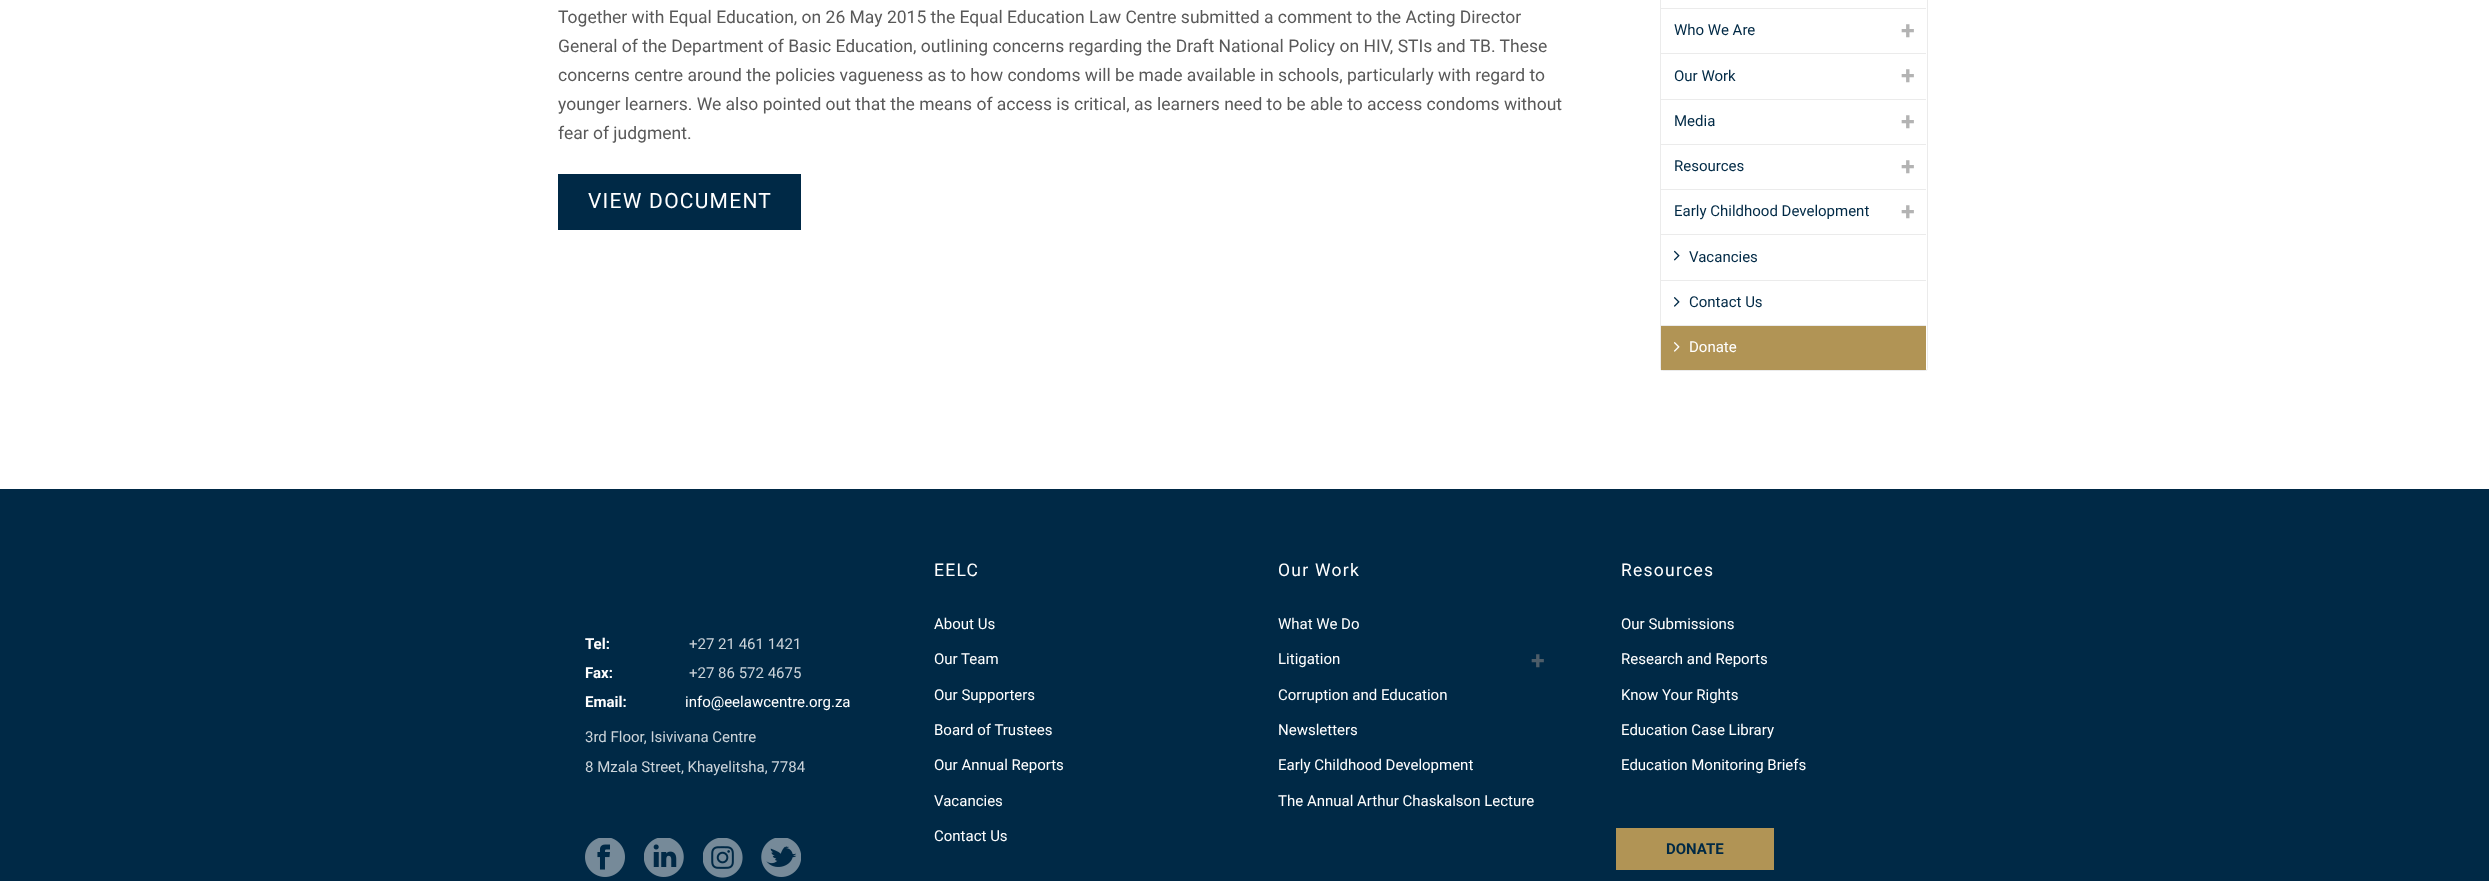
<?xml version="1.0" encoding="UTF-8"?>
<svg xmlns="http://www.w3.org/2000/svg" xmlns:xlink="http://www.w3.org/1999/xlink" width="2489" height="881">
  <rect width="100%" height="100%" fill="#ffffff" />
  <rect x="558" y="174" width="243" height="56" fill="#002946" />
  <rect x="1660.5" y="-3.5" width="267" height="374" rx="2" fill="none" stroke="#ebebeb" />
  <rect x="1661" y="8" width="265" height="1" fill="#ebebeb" />
  <rect x="1661" y="53" width="265" height="1" fill="#ebebeb" />
  <rect x="1661" y="99" width="265" height="1" fill="#ebebeb" />
  <rect x="1661" y="144" width="265" height="1" fill="#ebebeb" />
  <rect x="1661" y="189" width="265" height="1" fill="#ebebeb" />
  <rect x="1661" y="234" width="265" height="1" fill="#ebebeb" />
  <rect x="1661" y="280" width="265" height="1" fill="#ebebeb" />
  <image x="1674" y="250" width="6" height="11" xlink:href="image1.png" />
  <rect x="1661" y="325" width="265" height="1" fill="#ebebeb" />
  <image x="1674" y="297" width="6" height="10" xlink:href="image2.png" />
  <rect x="1661" y="326" width="265" height="44" fill="#b19455" />
  <image x="1674" y="342" width="6" height="10" xlink:href="image3.png" />
  <rect y="489" width="2489" height="392" fill="#002946" />
  <image x="585" y="838" width="40" height="39" xlink:href="image4.png" />
  <image x="644" y="838" width="40" height="39" xlink:href="image5.png" />
  <image x="703" y="838" width="40" height="40" xlink:href="image6.png" />
  <image x="761" y="838" width="40" height="39" xlink:href="image7.png" />
  <rect x="1616" y="828" width="158" height="42" fill="#b19455" />
  <text x="558" y="23" style="font-family: Roboto; font-size: 17.5px; fill: #595959">Together with Equal Education, on 26 May 2015 the Equal Education Law Centre submitted a comment to the Acting Director</text>
  <text x="558" y="52" style="font-family: Roboto; font-size: 17.5px; fill: #595959">General of the Department of Basic Education, outlining concerns regarding the Draft National Policy on HIV, STIs and TB. These</text>
  <text x="558" y="81" style="font-family: Roboto; font-size: 17.5px; fill: #595959">concerns centre around the policies vagueness as to how condoms will be made available in schools, particularly with regard to</text>
  <text x="558" y="110" style="font-family: Roboto; font-size: 17.5px; fill: #595959">younger learners. We also pointed out that the means of access is critical, as learners need to be able to access condoms without</text>
  <text x="558" y="139" style="font-family: Roboto; font-size: 17.5px; fill: #595959">fear of judgment.</text>
  <text x="588" y="208" style="font-family: Roboto; font-size: 21px; letter-spacing: 1.25px; fill: #ffffff">VIEW DOCUMENT</text>
  <text x="1674" y="35" style="font-family: Roboto; font-size: 15px; fill: #002945">Who We Are</text>
  <text x="1901" y="39" style="font-family: Roboto; font-size: 25px; font-weight: bold; fill: #b3b3b3">+</text>
  <text x="1674" y="81" style="font-family: Roboto; font-size: 15px; fill: #002945">Our Work</text>
  <text x="1901" y="84" style="font-family: Roboto; font-size: 25px; font-weight: bold; fill: #b3b3b3">+</text>
  <text x="1674" y="126" style="font-family: Roboto; font-size: 15px; fill: #002945">Media</text>
  <text x="1901" y="130" style="font-family: Roboto; font-size: 25px; font-weight: bold; fill: #b3b3b3">+</text>
  <text x="1674" y="171" style="font-family: Roboto; font-size: 15px; fill: #002945">Resources</text>
  <text x="1901" y="175" style="font-family: Roboto; font-size: 25px; font-weight: bold; fill: #b3b3b3">+</text>
  <text x="1674" y="216" style="font-family: Roboto; font-size: 15px; fill: #002945">Early Childhood Development</text>
  <text x="1901" y="220" style="font-family: Roboto; font-size: 25px; font-weight: bold; fill: #b3b3b3">+</text>
  <text x="1689" y="262" style="font-family: Roboto; font-size: 15px; fill: #002945">Vacancies</text>
  <text x="1689" y="307" style="font-family: Roboto; font-size: 15px; fill: #002945">Contact Us</text>
  <text x="1689" y="352" style="font-family: Roboto; font-size: 15px; fill: #ffffff">Donate</text>
  <text x="585" y="649" style="font-family: Roboto; font-size: 15px; font-weight: bold; fill: #ffffff">Tel:</text>
  <text x="689" y="649" style="font-family: Roboto; font-size: 15px; fill: #ccd4da">+27 21 461 1421</text>
  <text x="585" y="678" style="font-family: Roboto; font-size: 15px; font-weight: bold; fill: #ffffff">Fax:</text>
  <text x="689" y="678" style="font-family: Roboto; font-size: 15px; fill: #ccd4da">+27 86 572 4675</text>
  <text x="585" y="707" style="font-family: Roboto; font-size: 15px; font-weight: bold; fill: #ffffff">Email:</text>
  <text x="685" y="707" style="font-family: Roboto; font-size: 15px; fill: #ffffff">info@eelawcentre.org.za</text>
  <text x="585" y="742" style="font-family: Roboto; font-size: 15px; fill: #ccd4da">3rd Floor, Isivivana Centre</text>
  <text x="585" y="772" style="font-family: Roboto; font-size: 15px; fill: #ccd4da">8 Mzala Street, Khayelitsha, 7784</text>
  <text x="934" y="576" style="font-family: Roboto; font-size: 17.5px; letter-spacing: 1.25px; fill: #ffffff">EELC</text>
  <text x="934" y="629" style="font-family: Roboto; font-size: 15px; fill: #ffffff">About Us</text>
  <text x="934" y="664" style="font-family: Roboto; font-size: 15px; fill: #ffffff">Our Team</text>
  <text x="934" y="700" style="font-family: Roboto; font-size: 15px; fill: #ffffff">Our Supporters</text>
  <text x="934" y="735" style="font-family: Roboto; font-size: 15px; fill: #ffffff">Board of Trustees</text>
  <text x="934" y="770" style="font-family: Roboto; font-size: 15px; fill: #ffffff">Our Annual Reports</text>
  <text x="934" y="806" style="font-family: Roboto; font-size: 15px; fill: #ffffff">Vacancies</text>
  <text x="934" y="841" style="font-family: Roboto; font-size: 15px; fill: #ffffff">Contact Us</text>
  <text x="1278" y="576" style="font-family: Roboto; font-size: 17.5px; letter-spacing: 1.25px; fill: #ffffff">Our Work</text>
  <text x="1278" y="629" style="font-family: Roboto; font-size: 15px; fill: #ffffff">What We Do</text>
  <text x="1278" y="664" style="font-family: Roboto; font-size: 15px; fill: #ffffff">Litigation</text>
  <text x="1531" y="669" style="font-family: Roboto; font-size: 25px; font-weight: bold; fill: #4d5d69">+</text>
  <text x="1278" y="700" style="font-family: Roboto; font-size: 15px; fill: #ffffff">Corruption and Education</text>
  <text x="1278" y="735" style="font-family: Roboto; font-size: 15px; fill: #ffffff">Newsletters</text>
  <text x="1278" y="770" style="font-family: Roboto; font-size: 15px; fill: #ffffff">Early Childhood Development</text>
  <text x="1278" y="806" style="font-family: Roboto; font-size: 15px; fill: #ffffff">The Annual Arthur Chaskalson Lecture</text>
  <text x="1621" y="576" style="font-family: Roboto; font-size: 17.5px; letter-spacing: 1.25px; fill: #ffffff">Resources</text>
  <text x="1621" y="629" style="font-family: Roboto; font-size: 15px; fill: #ffffff">Our Submissions</text>
  <text x="1621" y="664" style="font-family: Roboto; font-size: 15px; fill: #ffffff">Research and Reports</text>
  <text x="1621" y="700" style="font-family: Roboto; font-size: 15px; fill: #ffffff">Know Your Rights</text>
  <text x="1621" y="735" style="font-family: Roboto; font-size: 15px; fill: #ffffff">Education Case Library</text>
  <text x="1621" y="770" style="font-family: Roboto; font-size: 15px; fill: #ffffff">Education Monitoring Briefs</text>
  <text x="1666" y="854" style="font-family: Roboto; font-size: 15px; font-weight: bold; fill: #002945">DONATE</text>
</svg>
